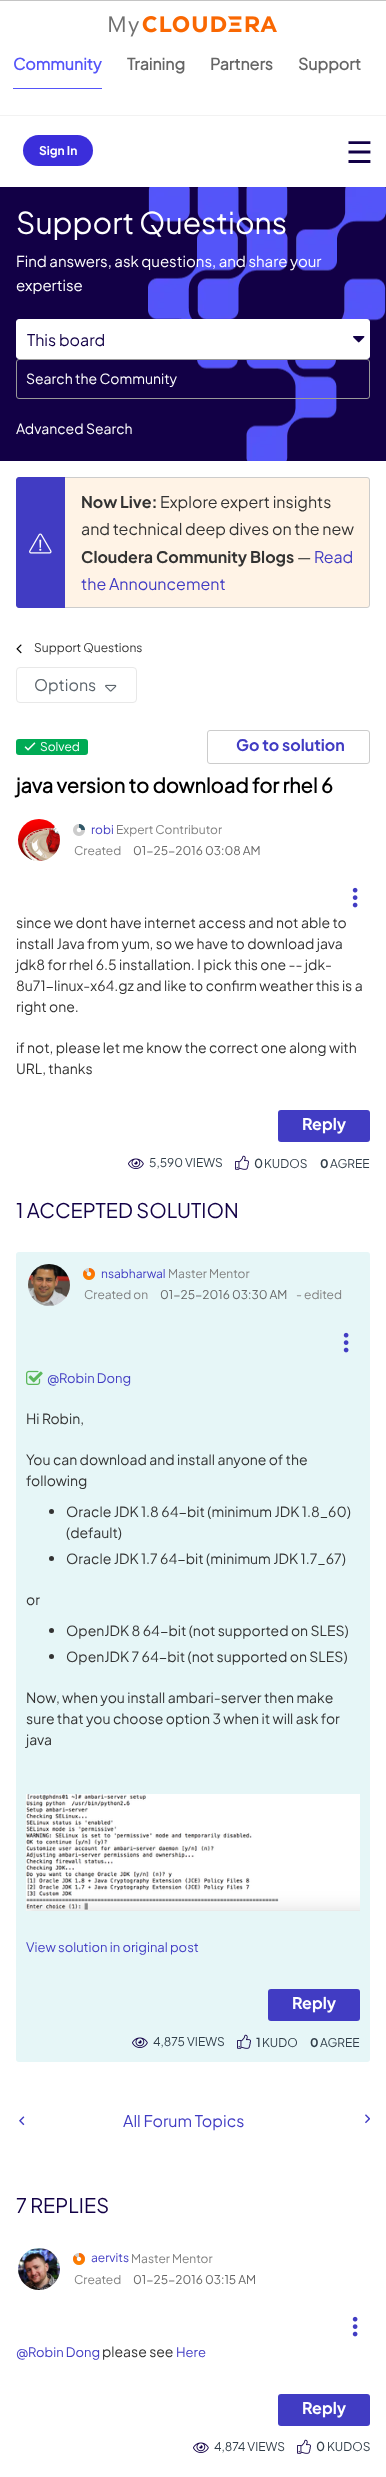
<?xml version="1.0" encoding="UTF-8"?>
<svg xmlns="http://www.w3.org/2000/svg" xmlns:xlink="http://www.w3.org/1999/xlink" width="386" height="2477">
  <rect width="100%" height="100%" fill="#ffffff" />
  <rect width="386" height="1" fill="#c4c4c4" />
  <rect y="115" width="386" height="1" fill="#f2f2f2" />
  <image x="109" y="16" width="168" height="21" xlink:href="image1.png" />
  <rect x="13" y="88" width="89" height="1" fill="#5555f9" />
  <rect x="23" y="135" width="70" height="31" rx="15.5" fill="#3b2edb" />
  <rect y="187" width="386" height="274" fill="#120046" />
  <image x="148" y="187" width="238" height="274" xlink:href="image2.png" />
  <rect x="16.5" y="319.5" width="353" height="39" rx="2.5" fill="#ffffff" stroke="#ffffff" />
  <image x="353" y="336" width="12" height="7" xlink:href="image3.png" />
  <rect x="16.5" y="359.5" width="353" height="39" rx="2.5" fill="none" stroke="#999999" />
  <rect x="16.5" y="477.5" width="353" height="130" rx="2.5" fill="#fff3e6" stroke="#cccccc" />
  <path d="M 19 477 h 46 v 131 h -46 c -1.5 0 -3 -1.5 -3 -3 v -125 c 0 -1.5 1.5 -3 3 -3 z" fill="#413cc3" />
  <image x="29" y="533" width="23" height="21" xlink:href="image4.png" />
  <image x="16" y="644" width="6" height="10" xlink:href="image5.png" />
  <rect x="16.5" y="667.5" width="120" height="35" rx="3.5" fill="none" stroke="#e8e8e8" />
  <image x="105" y="684" width="12" height="8" xlink:href="image6.png" />
  <rect x="16" y="739" width="72" height="16" rx="3" fill="#00ab55" />
  <image x="24" y="742" width="12" height="9" xlink:href="image7.png" />
  <rect x="207.5" y="730.5" width="162" height="33" rx="2.5" fill="none" stroke="#cccccc" />
  <image x="18" y="819" width="42" height="42" xlink:href="image8.png" />
  <image x="73" y="824" width="12" height="12" xlink:href="image9.png" />
  <image x="352" y="887" width="6" height="21" xlink:href="image10.png" />
  <rect x="278" y="1110" width="92" height="32" rx="3" fill="#413cc3" />
  <image x="128" y="1158" width="16" height="11" xlink:href="image11.png" />
  <image x="235" y="1155" width="14" height="15" xlink:href="image12.png" />
  <rect x="16" y="1252" width="354" height="810" rx="3" fill="#e6f6f7" />
  <image x="28" y="1264" width="42" height="42" xlink:href="image13.png" />
  <image x="83" y="1268" width="12" height="12" xlink:href="image14.png" />
  <image x="343" y="1332" width="6" height="21" xlink:href="image15.png" />
  <image x="26" y="1370" width="17" height="15" xlink:href="image16.png" />
  <circle cx="51.5" cy="1511.5" r="2.5" fill="#333333" />
  <circle cx="51.5" cy="1558.5" r="2.5" fill="#333333" />
  <circle cx="51.5" cy="1630.5" r="2.5" fill="#333333" />
  <circle cx="51.5" cy="1656.5" r="2.5" fill="#333333" />
  <image x="26" y="1794" width="334" height="117" xlink:href="image17.png" />
  <rect x="268" y="1989" width="92" height="32" rx="3" fill="#413cc3" />
  <image x="132" y="2037" width="16" height="11" xlink:href="image18.png" />
  <image x="237" y="2034" width="14" height="15" xlink:href="image19.png" />
  <image x="19" y="2116" width="6" height="10" xlink:href="image20.png" />
  <image x="365" y="2114" width="5" height="10" xlink:href="image21.png" />
  <image x="18" y="2248" width="42" height="42" xlink:href="image22.png" />
  <image x="73" y="2253" width="12" height="12" xlink:href="image23.png" />
  <image x="352" y="2316" width="6" height="21" xlink:href="image10.png" />
  <rect x="278" y="2394" width="92" height="32" rx="3" fill="#413cc3" />
  <image x="193" y="2442" width="16" height="11" xlink:href="image11.png" />
  <image x="297" y="2439" width="14" height="15" xlink:href="image12.png" />
  <text x="13" y="70" style="font-family: Plus Jakarta Sans; font-size: 16px; font-weight: bold; fill: #5555f9">Community</text>
  <text x="127" y="70" style="font-family: Plus Jakarta Sans; font-size: 16px; font-weight: bold; fill: #666666">Training</text>
  <text x="210" y="70" style="font-family: Plus Jakarta Sans; font-size: 16px; font-weight: bold; fill: #666666">Partners</text>
  <text x="298" y="70" style="font-family: Plus Jakarta Sans; font-size: 16px; font-weight: bold; fill: #666666">Support</text>
  <text x="39" y="155" style="font-family: 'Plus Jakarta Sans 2'; font-size: 12px; font-weight: bold; fill: #ffffff">Sign In</text>
  <text x="346" y="163" style="font-family: DejaVu Sans; font-size: 30px; fill: #120046">☰</text>
  <text x="16" y="234" style="font-family: Plus Jakarta Sans; font-size: 30px; fill: #ffffff">Support Questions</text>
  <text x="16" y="267" style="font-family: Plus Jakarta Sans; font-size: 15px; fill: #ffffff">Find answers, ask questions, and share your</text>
  <text x="16" y="291" style="font-family: Plus Jakarta Sans; font-size: 15px; fill: #ffffff">expertise</text>
  <text x="27" y="346" style="font-family: Plus Jakarta Sans; font-size: 16px; fill: #120046">This board</text>
  <text x="26" y="384" style="font-family: Plus Jakarta Sans; font-size: 14px; fill: #ffffff">Search the Community</text>
  <text x="16" y="434" style="font-family: Plus Jakarta Sans; font-size: 14px; fill: #ffffff">Advanced Search</text>
  <text x="81" y="508" style="font-family: 'Plus Jakarta Sans 2'; font-size: 16px; font-weight: bold; fill: #333333">Now Live:</text>
  <text x="160" y="508" style="font-family: Plus Jakarta Sans; font-size: 16px; fill: #333333">Explore expert insights</text>
  <text x="81" y="535" style="font-family: Plus Jakarta Sans; font-size: 16px; fill: #333333">and technical deep dives on the new</text>
  <text x="81" y="563" style="font-family: 'Plus Jakarta Sans 2'; font-size: 16px; font-weight: bold; fill: #333333">Cloudera Community Blogs</text>
  <text x="297" y="563" style="font-family: Plus Jakarta Sans; font-size: 16px; fill: #333333">—</text>
  <text x="314" y="563" style="font-family: Plus Jakarta Sans; font-size: 16px; fill: #413cc3">Read</text>
  <text x="81" y="590" style="font-family: Plus Jakarta Sans; font-size: 16px; fill: #413cc3">the Announcement</text>
  <text x="34" y="652" style="font-family: Plus Jakarta Sans; font-size: 12px; fill: #333333">Support Questions</text>
  <text x="34" y="691" style="font-family: Plus Jakarta Sans; font-size: 16px; fill: #5c656c">Options</text>
  <text x="40" y="751" style="font-family: Plus Jakarta Sans; font-size: 12px; fill: #ffffff">Solved</text>
  <text x="236" y="751" style="font-family: 'Plus Jakarta Sans 2'; font-size: 16px; font-weight: bold; fill: #413cc3">Go to solution</text>
  <text x="16" y="793" style="font-family: Plus Jakarta Sans; font-size: 20px; font-weight: bold; fill: #000000">java version to download for rhel 6</text>
  <text x="91" y="834" style="font-family: Plus Jakarta Sans; font-size: 12px; fill: #413cc3">robi</text>
  <text x="116" y="834" style="font-family: Plus Jakarta Sans; font-size: 12px; fill: #808080">Expert Contributor</text>
  <text x="74" y="855" style="font-family: Plus Jakarta Sans; font-size: 12px; fill: #808080">Created</text>
  <text x="133" y="855" style="font-family: Plus Jakarta Sans; font-size: 12px; fill: #666666">01-25-2016 03:08 AM</text>
  <text x="16" y="928" style="font-family: Plus Jakarta Sans; font-size: 14px; fill: #333333">since we dont have internet access and not able to</text>
  <text x="16" y="949" style="font-family: Plus Jakarta Sans; font-size: 14px; fill: #333333">install Java from yum, so we have to download java</text>
  <text x="16" y="970" style="font-family: Plus Jakarta Sans; font-size: 14px; fill: #333333">jdk8 for rhel 6.5 installation. I pick this one -- jdk-</text>
  <text x="16" y="991" style="font-family: Plus Jakarta Sans; font-size: 14px; fill: #333333">8u71-linux-x64.gz and like to confirm weather this is a</text>
  <text x="16" y="1012" style="font-family: Plus Jakarta Sans; font-size: 14px; fill: #333333">right one.</text>
  <text x="16" y="1053" style="font-family: Plus Jakarta Sans; font-size: 14px; fill: #333333">if not, please let me know the correct one along with</text>
  <text x="16" y="1074" style="font-family: Plus Jakarta Sans; font-size: 14px; fill: #333333">URL, thanks</text>
  <text x="302" y="1130" style="font-family: 'Plus Jakarta Sans 2'; font-size: 16px; font-weight: bold; fill: #ffffff">Reply</text>
  <text x="149" y="1167" style="font-family: Plus Jakarta Sans; font-size: 12px; fill: #313e49">5,590 VIEWS</text>
  <text x="254" y="1168" style="font-family: Plus Jakarta Sans; font-size: 12px; font-weight: bold; fill: #313e49">0</text>
  <text x="264" y="1168" style="font-family: Plus Jakarta Sans; font-size: 12px; fill: #313e49">KUDOS</text>
  <text x="320" y="1168" style="font-family: 'Plus Jakarta Sans 2'; font-size: 12px; font-weight: bold; fill: #313e49">0</text>
  <text x="330" y="1168" style="font-family: Plus Jakarta Sans; font-size: 12px; fill: #313e49">AGREE</text>
  <text x="16" y="1218" style="font-family: Plus Jakarta Sans; font-size: 20px; fill: #120046">1 ACCEPTED SOLUTION</text>
  <text x="101" y="1278" style="font-family: Plus Jakarta Sans; font-size: 12px; fill: #413cc3">nsabharwal</text>
  <text x="168" y="1278" style="font-family: Plus Jakarta Sans; font-size: 12px; fill: #808080">Master Mentor</text>
  <text x="84" y="1299" style="font-family: Plus Jakarta Sans; font-size: 12px; fill: #808080">Created on</text>
  <text x="160" y="1299" style="font-family: Plus Jakarta Sans; font-size: 12px; fill: #666666">01-25-2016 03:30 AM</text>
  <text x="296" y="1299" style="font-family: Plus Jakarta Sans; font-size: 12px; fill: #808080">- edited</text>
  <text x="47" y="1383" style="font-family: Plus Jakarta Sans; font-size: 13px; fill: #413cc3">@Robin Dong</text>
  <text x="26" y="1424" style="font-family: Plus Jakarta Sans; font-size: 14px; fill: #333333">Hi Robin,</text>
  <text x="26" y="1465" style="font-family: Plus Jakarta Sans; font-size: 14px; fill: #333333">You can download and install anyone of the</text>
  <text x="26" y="1486" style="font-family: Plus Jakarta Sans; font-size: 14px; fill: #333333">following</text>
  <text x="66" y="1517" style="font-family: Plus Jakarta Sans; font-size: 14px; fill: #333333">Oracle JDK 1.8 64-bit (minimum JDK 1.8_60)</text>
  <text x="66" y="1538" style="font-family: Plus Jakarta Sans; font-size: 14px; fill: #333333">(default)</text>
  <text x="66" y="1564" style="font-family: Plus Jakarta Sans; font-size: 14px; fill: #333333">Oracle JDK 1.7 64-bit (minimum JDK 1.7_67)</text>
  <text x="26" y="1605" style="font-family: Plus Jakarta Sans; font-size: 14px; fill: #333333">or</text>
  <text x="66" y="1636" style="font-family: Plus Jakarta Sans; font-size: 14px; fill: #333333">OpenJDK 8 64-bit (not supported on SLES)</text>
  <text x="66" y="1662" style="font-family: Plus Jakarta Sans; font-size: 14px; fill: #333333">OpenJDK 7 64-bit (not supported on SLES)</text>
  <text x="26" y="1703" style="font-family: Plus Jakarta Sans; font-size: 14px; fill: #333333">Now, when you install ambari-server then make</text>
  <text x="26" y="1724" style="font-family: Plus Jakarta Sans; font-size: 14px; fill: #333333">sure that you choose option 3 when it will ask for</text>
  <text x="26" y="1745" style="font-family: Plus Jakarta Sans; font-size: 14px; fill: #333333">java</text>
  <text x="26" y="1952" style="font-family: Plus Jakarta Sans; font-size: 13px; fill: #413cc3">View solution in original post</text>
  <text x="292" y="2009" style="font-family: 'Plus Jakarta Sans 2'; font-size: 16px; font-weight: bold; fill: #ffffff">Reply</text>
  <text x="153" y="2046" style="font-family: Plus Jakarta Sans; font-size: 12px; fill: #313e49">4,875 VIEWS</text>
  <text x="256" y="2047" style="font-family: Plus Jakarta Sans; font-size: 12px; font-weight: bold; fill: #313e49">1</text>
  <text x="262" y="2047" style="font-family: Plus Jakarta Sans; font-size: 12px; fill: #313e49">KUDO</text>
  <text x="310" y="2047" style="font-family: 'Plus Jakarta Sans 2'; font-size: 12px; font-weight: bold; fill: #313e49">0</text>
  <text x="320" y="2047" style="font-family: Plus Jakarta Sans; font-size: 12px; fill: #313e49">AGREE</text>
  <text x="123" y="2127" style="font-family: Plus Jakarta Sans; font-size: 16px; fill: #413cc3">All Forum Topics</text>
  <text x="16" y="2213" style="font-family: Plus Jakarta Sans; font-size: 20px; fill: #120046">7 REPLIES</text>
  <text x="91" y="2262" style="font-family: Plus Jakarta Sans; font-size: 12px; fill: #413cc3">aervits</text>
  <text x="131" y="2263" style="font-family: Plus Jakarta Sans; font-size: 12px; fill: #808080">Master Mentor</text>
  <text x="74" y="2284" style="font-family: Plus Jakarta Sans; font-size: 12px; fill: #808080">Created</text>
  <text x="133" y="2284" style="font-family: Plus Jakarta Sans; font-size: 12px; fill: #666666">01-25-2016 03:15 AM</text>
  <text x="16" y="2357" style="font-family: Plus Jakarta Sans; font-size: 13px; fill: #413cc3">@Robin Dong</text>
  <text x="102" y="2357" style="font-family: Plus Jakarta Sans; font-size: 14px; fill: #333333">please see</text>
  <text x="176" y="2357" style="font-family: Plus Jakarta Sans; font-size: 13px; fill: #413cc3">Here</text>
  <text x="302" y="2414" style="font-family: 'Plus Jakarta Sans 2'; font-size: 16px; font-weight: bold; fill: #ffffff">Reply</text>
  <text x="214" y="2451" style="font-family: Plus Jakarta Sans; font-size: 12px; fill: #313e49">4,874 VIEWS</text>
  <text x="316" y="2451" style="font-family: Plus Jakarta Sans; font-size: 12px; font-weight: bold; fill: #313e49">0</text>
  <text x="327" y="2451" style="font-family: Plus Jakarta Sans; font-size: 12px; fill: #313e49">KUDOS</text>
</svg>
